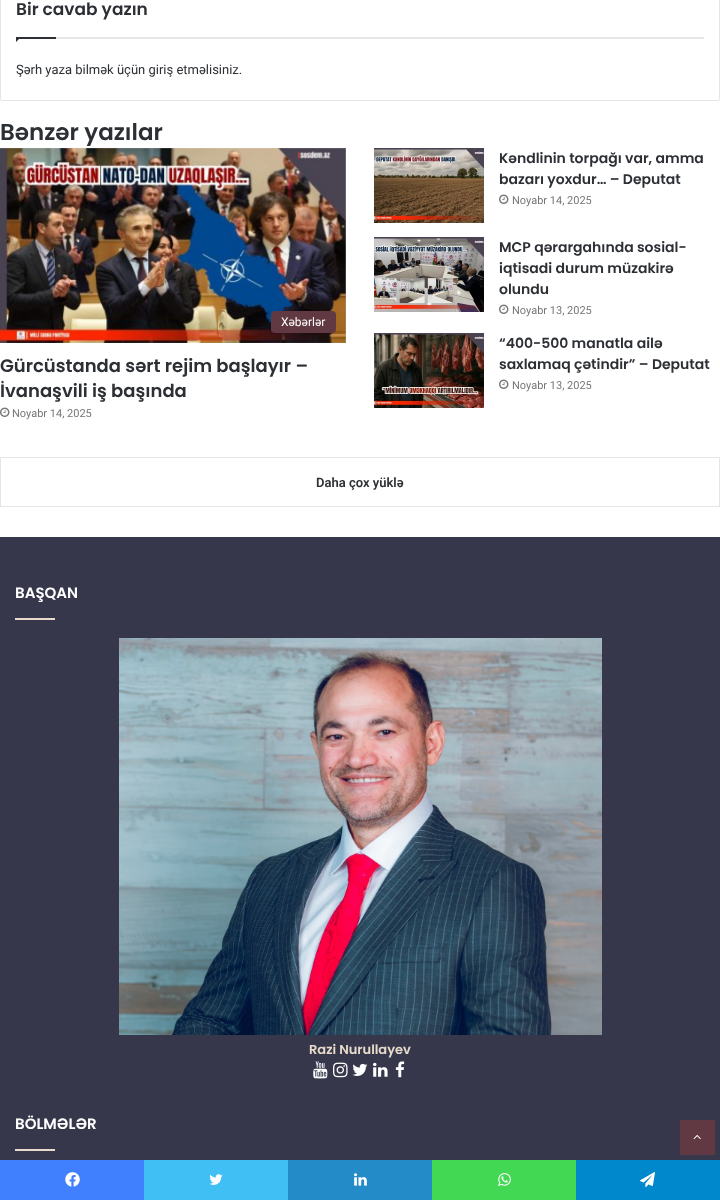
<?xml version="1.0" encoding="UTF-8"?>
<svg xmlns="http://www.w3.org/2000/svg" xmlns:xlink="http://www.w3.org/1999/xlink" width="720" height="1200">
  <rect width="100%" height="100%" fill="#ffffff" />
  <rect x="0.5" y="-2.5" width="719" height="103" rx="1.5" fill="none" stroke="#e5e5e5" />
  <rect x="56" y="37" width="648" height="2" fill="#e6e6e6" />
  <path d="M 16 37 h 5 l -5 5 z" fill="#2c2f34" />
  <rect x="16" y="37" width="40" height="2" fill="#2c2f34" />
  <image x="374" y="148" width="110" height="75" xlink:href="image1.png" />
  <image x="499" y="194" width="10" height="10" xlink:href="image2.png" />
  <image x="374" y="237" width="110" height="75" xlink:href="image3.png" />
  <image x="499" y="304" width="10" height="10" xlink:href="image2.png" />
  <image x="0" y="148" width="346" height="195" xlink:href="image4.png" />
  <rect x="271" y="311" width="65" height="22" rx="4" fill="#613942" />
  <image x="0" y="407" width="10" height="10" xlink:href="image2.png" />
  <image x="374" y="333" width="110" height="75" xlink:href="image5.png" />
  <image x="499" y="379" width="10" height="10" xlink:href="image2.png" />
  <rect x="0.5" y="457.5" width="719" height="49" fill="none" stroke="#e6e6e6" />
  <rect y="537" width="720" height="623" fill="#36374b" />
  <rect x="15" y="618" width="40" height="2" fill="#e8dbcb" />
  <image x="119" y="638" width="483" height="397" xlink:href="image6.png" />
  <image x="313" y="1061" width="15" height="18" xlink:href="image7.png" />
  <image x="333" y="1062" width="15" height="16" xlink:href="image8.png" />
  <image x="352" y="1063" width="16" height="13" xlink:href="image9.png" />
  <image x="373" y="1062" width="15" height="15" xlink:href="image10.png" />
  <image x="395" y="1061" width="10" height="17" xlink:href="image11.png" />
  <rect x="15" y="1149" width="40" height="2" fill="#e8dbcb" />
  <rect x="680" y="1120" width="35" height="35" fill="#613942" />
  <image x="693" y="1134" width="8" height="6" xlink:href="image12.png" />
  <rect y="1160" width="144" height="40" fill="#4080ff" />
  <image x="65" y="1172" width="15" height="15" xlink:href="image13.png" />
  <rect x="144" y="1160" width="144" height="40" fill="#40bff5" />
  <image x="209" y="1174" width="14" height="11" xlink:href="image14.png" />
  <rect x="288" y="1160" width="144" height="40" fill="#238cc8" />
  <image x="354" y="1173" width="13" height="13" xlink:href="image15.png" />
  <rect x="432" y="1160" width="144" height="40" fill="#43d854" />
  <image x="498" y="1173" width="13" height="13" xlink:href="image16.png" />
  <rect x="576" y="1160" width="144" height="40" fill="#0088cc" />
  <image x="640" y="1172" width="15" height="15" xlink:href="image17.png" />
  <text x="16" y="15" style="font-family: Poppins; font-size: 17px; font-weight: 600; fill: #2c2f34">Bir cavab yazın</text>
  <text x="16" y="74" style="font-family: Roboto; font-size: 13px; fill: #2c2f34">Şərh yaza bilmək üçün giriş etməlisiniz.</text>
  <text x="0" y="140" style="font-family: Poppins; font-size: 23px; font-weight: 600; fill: #2c2f34">Bənzər yazılar</text>
  <text x="499" y="163" style="font-family: Poppins; font-size: 14px; font-weight: 600; fill: #2c2f34">Kəndlinin torpağı var, amma</text>
  <text x="499" y="184" style="font-family: Poppins; font-size: 14px; font-weight: 600; fill: #2c2f34">bazarı yoxdur… – Deputat</text>
  <text x="512" y="204" style="font-family: Roboto; font-size: 11px; fill: #767676">Noyabr 14, 2025</text>
  <text x="499" y="252" style="font-family: Poppins; font-size: 14px; font-weight: 600; fill: #2c2f34">MCP qərargahında sosial-</text>
  <text x="499" y="273" style="font-family: Poppins; font-size: 14px; font-weight: 600; fill: #2c2f34">iqtisadi durum müzakirə</text>
  <text x="499" y="294" style="font-family: Poppins; font-size: 14px; font-weight: 600; fill: #2c2f34">olundu</text>
  <text x="512" y="314" style="font-family: Roboto; font-size: 11px; fill: #767676">Noyabr 13, 2025</text>
  <text x="281" y="326" style="font-family: Roboto; font-size: 12px; fill: #ffffff">Xəbərlər</text>
  <text x="0" y="372" style="font-family: Poppins; font-size: 18px; font-weight: 600; fill: #2c2f34">Gürcüstanda sərt rejim başlayır –</text>
  <text x="0" y="397" style="font-family: Poppins; font-size: 18px; font-weight: 600; fill: #2c2f34">İvanaşvili iş başında</text>
  <text x="12" y="417" style="font-family: Roboto; font-size: 11px; fill: #767676">Noyabr 14, 2025</text>
  <text x="499" y="348" style="font-family: Poppins; font-size: 14px; font-weight: 600; fill: #2c2f34">“400-500 manatla ailə</text>
  <text x="499" y="369" style="font-family: Poppins; font-size: 14px; font-weight: 600; fill: #2c2f34">saxlamaq çətindir” – Deputat</text>
  <text x="512" y="389" style="font-family: Roboto; font-size: 11px; fill: #767676">Noyabr 13, 2025</text>
  <text x="316" y="487" style="font-family: Roboto; font-size: 13px; font-weight: 600; fill: #2c2f34">Daha çox yüklə</text>
  <text x="15" y="598" style="font-family: Poppins; font-size: 15px; font-weight: 600; fill: #ffffff">BAŞQAN</text>
  <text x="309" y="1054" style="font-family: Poppins; font-size: 13px; font-weight: 600; fill: #e8dbcb">Razi Nurullayev</text>
  <text x="15" y="1129" style="font-family: Poppins; font-size: 15px; font-weight: 600; fill: #ffffff">BÖLMƏLƏR</text>
</svg>
